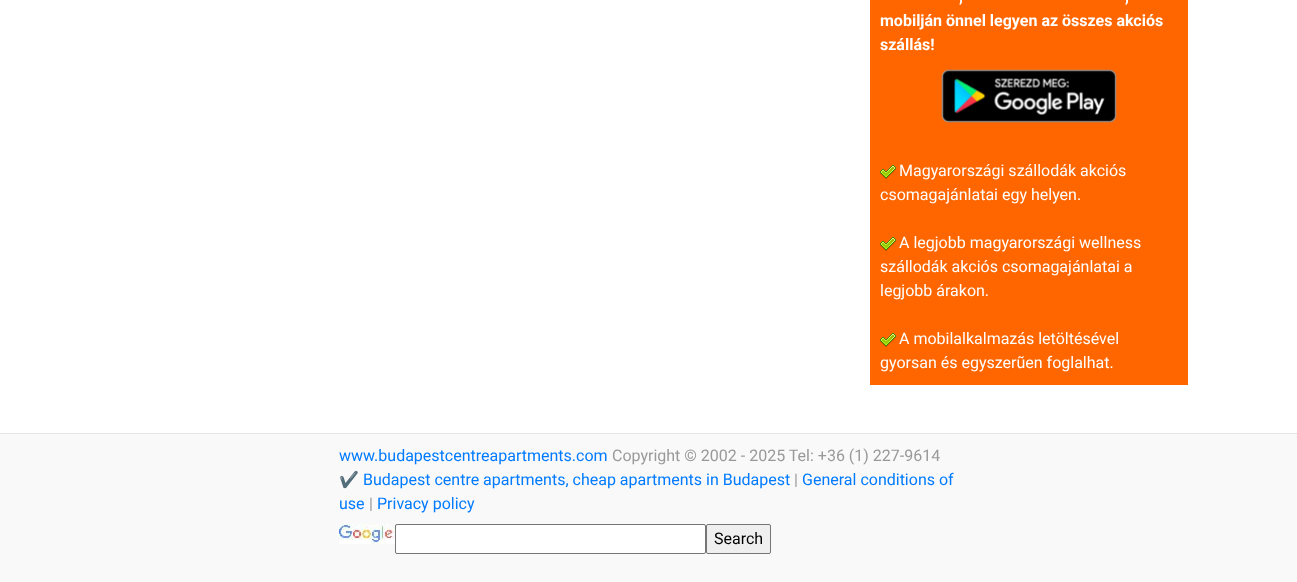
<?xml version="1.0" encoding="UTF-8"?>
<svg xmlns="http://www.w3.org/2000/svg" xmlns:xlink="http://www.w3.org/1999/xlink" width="1297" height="582">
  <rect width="100%" height="100%" fill="#ffffff" />
  <rect x="870" width="318" height="385" fill="#ff6600" />
  <image x="941" y="69" width="176" height="54" xlink:href="image1.png" />
  <image x="880" y="165" width="16" height="14" xlink:href="image2.png" />
  <image x="880" y="237" width="16" height="14" xlink:href="image2.png" />
  <image x="880" y="333" width="16" height="14" xlink:href="image2.png" />
  <rect y="434" width="1297" height="148" fill="#f9f9f9" />
  <rect y="433" width="1297" height="1" fill="#e5e5e5" />
  <image x="339" y="524" width="56" height="20" xlink:href="image3.png" />
  <rect x="395.5" y="524.5" width="310" height="29" rx="1.5" fill="#ffffff" stroke="#767676" />
  <rect x="706.5" y="524.5" width="64" height="29" rx="1.5" fill="#efefef" stroke="#767676" />
  <text x="959" y="2" style="font-family: Roboto; font-size: 16px; font-weight: bold; fill: #ffffff">,</text>
  <text x="1125" y="2" style="font-family: Roboto; font-size: 16px; font-weight: bold; fill: #ffffff">,</text>
  <text x="880" y="26" style="font-family: Roboto; font-size: 16px; font-weight: bold; fill: #ffffff">mobilján önnel legyen az összes akciós</text>
  <text x="880" y="50" style="font-family: Roboto; font-size: 16px; font-weight: bold; fill: #ffffff">szállás!</text>
  <text x="899" y="176" style="font-family: Roboto; font-size: 16px; fill: #ffffff">Magyarországi szállodák akciós</text>
  <text x="880" y="200" style="font-family: Roboto; font-size: 16px; fill: #ffffff">csomagajánlatai egy helyen.</text>
  <text x="899" y="248" style="font-family: Roboto; font-size: 16px; fill: #ffffff">A legjobb magyarországi wellness</text>
  <text x="880" y="272" style="font-family: Roboto; font-size: 16px; fill: #ffffff">szállodák akciós csomagajánlatai a</text>
  <text x="880" y="296" style="font-family: Roboto; font-size: 16px; fill: #ffffff">legjobb árakon.</text>
  <text x="899" y="344" style="font-family: Roboto; font-size: 16px; fill: #ffffff">A mobilalkalmazás letöltésével</text>
  <text x="880" y="368" style="font-family: Roboto; font-size: 16px; fill: #ffffff">gyorsan és egyszerũen foglalhat.</text>
  <text x="339" y="461" style="font-family: Roboto; font-size: 16px; fill: #007bff">www.budapestcentreapartments.com</text>
  <text x="612" y="461" style="font-family: Roboto; font-size: 16px; fill: #999999">Copyright © 2002 - 2025 Tel: +36 (1) 227-9614</text>
  <text x="339" y="485" style="font-family: Noto Color Emoji; font-size: 16px; fill: #007bff">✔️</text>
  <text x="363" y="485" style="font-family: Roboto; font-size: 16px; fill: #007bff">Budapest centre apartments, cheap apartments in Budapest</text>
  <text x="794" y="485" style="font-family: Roboto; font-size: 16px; fill: #999999">|</text>
  <text x="802" y="485" style="font-family: Roboto; font-size: 16px; fill: #007bff">General conditions of</text>
  <text x="339" y="509" style="font-family: Roboto; font-size: 16px; fill: #007bff">use</text>
  <text x="369" y="509" style="font-family: Roboto; font-size: 16px; fill: #999999">|</text>
  <text x="377" y="509" style="font-family: Roboto; font-size: 16px; fill: #007bff">Privacy policy</text>
  <text x="714" y="544" style="font-family: Roboto; font-size: 16px; fill: #000000">Search</text>
</svg>
